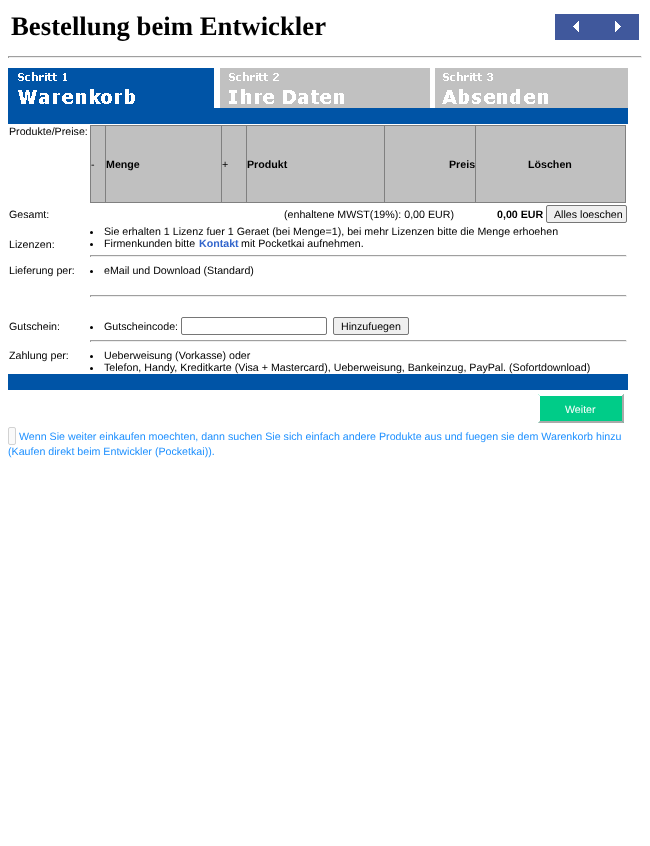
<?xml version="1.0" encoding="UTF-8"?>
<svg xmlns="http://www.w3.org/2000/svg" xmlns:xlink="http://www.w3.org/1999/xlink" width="650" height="846">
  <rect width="100%" height="100%" fill="#ffffff" />
  <image x="555" y="14" width="42" height="26" xlink:href="image1.png" />
  <image x="597" y="14" width="42" height="26" xlink:href="image2.png" />
  <rect x="8" y="56" width="634" height="1" fill="#9f9f9f" />
  <rect x="641" y="56" width="1" height="2" fill="#eeeeee" />
  <rect x="8" y="57" width="634" height="1" fill="#eeeeee" />
  <rect x="8" y="56" width="1" height="2" fill="#9f9f9f" />
  <image x="8" y="68" width="620" height="40" xlink:href="image3.png" />
  <rect x="8" y="108" width="620" height="16" fill="#0054a6" />
  <rect x="90" y="125" width="536" height="1" fill="#808080" />
  <rect x="625" y="125" width="1" height="78" fill="#808080" />
  <rect x="90" y="202" width="536" height="1" fill="#808080" />
  <rect x="90" y="125" width="1" height="78" fill="#808080" />
  <rect x="91" y="126" width="14" height="76" fill="#c0c0c0" />
  <rect x="106" y="126" width="115" height="76" fill="#c0c0c0" />
  <rect x="105" y="125" width="1" height="78" fill="#808080" />
  <rect x="222" y="126" width="24" height="76" fill="#c0c0c0" />
  <rect x="221" y="125" width="1" height="78" fill="#808080" />
  <rect x="247" y="126" width="137" height="76" fill="#c0c0c0" />
  <rect x="246" y="125" width="1" height="78" fill="#808080" />
  <rect x="385" y="126" width="90" height="76" fill="#c0c0c0" />
  <rect x="384" y="125" width="1" height="78" fill="#808080" />
  <rect x="476" y="126" width="149" height="76" fill="#c0c0c0" />
  <rect x="475" y="125" width="1" height="78" fill="#808080" />
  <rect x="546.5" y="205.5" width="80" height="17" rx="1.5" fill="#efefef" stroke="#767676" />
  <circle cx="91.5" cy="232.5" r="1.5" fill="#000000" />
  <circle cx="91.5" cy="244.5" r="1.5" fill="#000000" />
  <rect x="90" y="255" width="537" height="1" fill="#9f9f9f" />
  <rect x="626" y="255" width="1" height="2" fill="#eeeeee" />
  <rect x="90" y="256" width="537" height="1" fill="#eeeeee" />
  <rect x="90" y="255" width="1" height="2" fill="#9f9f9f" />
  <circle cx="91.5" cy="271.5" r="1.5" fill="#000000" />
  <rect x="90" y="295" width="537" height="1" fill="#9f9f9f" />
  <rect x="626" y="295" width="1" height="2" fill="#eeeeee" />
  <rect x="90" y="296" width="537" height="1" fill="#eeeeee" />
  <rect x="90" y="295" width="1" height="2" fill="#9f9f9f" />
  <circle cx="91.5" cy="327.5" r="1.5" fill="#000000" />
  <rect x="181.5" y="317.5" width="145" height="17" rx="1.5" fill="none" stroke="#767676" />
  <rect x="333.5" y="317.5" width="75" height="17" rx="1.5" fill="#efefef" stroke="#767676" />
  <rect x="90" y="340" width="537" height="1" fill="#9f9f9f" />
  <rect x="626" y="340" width="1" height="2" fill="#eeeeee" />
  <rect x="90" y="341" width="537" height="1" fill="#eeeeee" />
  <rect x="90" y="340" width="1" height="2" fill="#9f9f9f" />
  <circle cx="91.5" cy="356.5" r="1.5" fill="#000000" />
  <circle cx="91.5" cy="368.5" r="1.5" fill="#000000" />
  <rect x="8" y="374" width="620" height="16" fill="#0054a6" />
  <rect x="538" y="394" width="86" height="29" fill="#00cc88" />
  <path d="M 538 394 h 86 l -2 2 h -82 z" fill="#ffffff" />
  <path d="M 624 394 v 29 l -2 -2 v -25 z" fill="#aaaaaa" />
  <path d="M 624 423 h -86 l 2 -2 h 82 z" fill="#aaaaaa" />
  <path d="M 538 423 v -29 l 2 2 v 25 z" fill="#ffffff" />
  <rect x="8.5" y="427.5" width="7" height="17" rx="1.5" fill="#fafafa" stroke="#d2d2d2" />
  <text x="11" y="35" style="font-family: Liberation Serif; font-size: 26.75px; font-weight: bold; fill: #000000">Bestellung beim Entwickler</text>
  <text x="9" y="135" style="font-family: Liberation Sans; font-size: 10.67px; fill: #000000">Produkte/Preise:</text>
  <text x="91" y="168" style="font-family: Liberation Sans; font-size: 10.67px; fill: #000000">-</text>
  <text x="106" y="168" style="font-family: Liberation Sans; font-size: 10.67px; font-weight: bold; fill: #000000">Menge</text>
  <text x="222" y="168" style="font-family: Liberation Sans; font-size: 10.67px; fill: #000000">+</text>
  <text x="247" y="168" style="font-family: Liberation Sans; font-size: 10.67px; font-weight: bold; fill: #000000">Produkt</text>
  <text x="449" y="168" style="font-family: Liberation Sans; font-size: 10.67px; font-weight: bold; fill: #000000">Preis</text>
  <text x="528" y="168" style="font-family: Liberation Sans; font-size: 10.67px; font-weight: bold; fill: #000000">Löschen</text>
  <text x="9" y="218" style="font-family: Liberation Sans; font-size: 10.67px; fill: #000000">Gesamt:</text>
  <text x="284" y="218" style="font-family: Liberation Sans; font-size: 10.67px; fill: #000000">(enhaltene MWST(19%): 0,00 EUR)</text>
  <text x="497" y="218" style="font-family: Liberation Sans; font-size: 10.67px; font-weight: bold; fill: #000000">0,00 EUR</text>
  <text x="554" y="218" style="font-family: Liberation Sans; font-size: 10.67px; fill: #000000">Alles loeschen</text>
  <text x="9" y="248" style="font-family: Liberation Sans; font-size: 10.67px; fill: #000000">Lizenzen:</text>
  <text x="104" y="235" style="font-family: Liberation Sans; font-size: 10.67px; fill: #000000">Sie erhalten 1 Lizenz fuer 1 Geraet (bei Menge=1), bei mehr Lizenzen bitte die Menge erhoehen</text>
  <text x="104" y="247" style="font-family: Liberation Sans; font-size: 10.67px; fill: #000000">Firmenkunden bitte</text>
  <text x="199" y="247" style="font-family: Liberation Sans; font-size: 10.67px; font-weight: bold; fill: #3366cc">Kontakt</text>
  <text x="241" y="247" style="font-family: Liberation Sans; font-size: 10.67px; fill: #000000">mit Pocketkai aufnehmen.</text>
  <text x="9" y="274" style="font-family: Liberation Sans; font-size: 10.67px; fill: #000000">Lieferung per:</text>
  <text x="104" y="274" style="font-family: Liberation Sans; font-size: 10.67px; fill: #000000">eMail und Download (Standard)</text>
  <text x="9" y="330" style="font-family: Liberation Sans; font-size: 10.67px; fill: #000000">Gutschein:</text>
  <text x="104" y="330" style="font-family: Liberation Sans; font-size: 10.67px; fill: #000000">Gutscheincode:</text>
  <text x="341" y="330" style="font-family: Liberation Sans; font-size: 10.67px; fill: #000000">Hinzufuegen</text>
  <text x="9" y="359" style="font-family: Liberation Sans; font-size: 10.67px; fill: #000000">Zahlung per:</text>
  <text x="104" y="359" style="font-family: Liberation Sans; font-size: 10.67px; fill: #000000">Ueberweisung (Vorkasse) oder</text>
  <text x="104" y="371" style="font-family: Liberation Sans; font-size: 10.67px; fill: #000000">Telefon, Handy, Kreditkarte (Visa + Mastercard), Ueberweisung, Bankeinzug, PayPal. (Sofortdownload)</text>
  <text x="565" y="413" style="font-family: Liberation Sans; font-size: 10.67px; fill: #ffffff">Weiter</text>
  <text x="19" y="440" style="font-family: Liberation Sans; font-size: 10.67px; fill: #1e90ff">Wenn Sie weiter einkaufen moechten, dann suchen Sie sich einfach andere Produkte aus und fuegen sie dem Warenkorb hinzu</text>
  <text x="8" y="455" style="font-family: Liberation Sans; font-size: 10.67px; fill: #1e90ff">(Kaufen direkt beim Entwickler (Pocketkai)).</text>
</svg>
